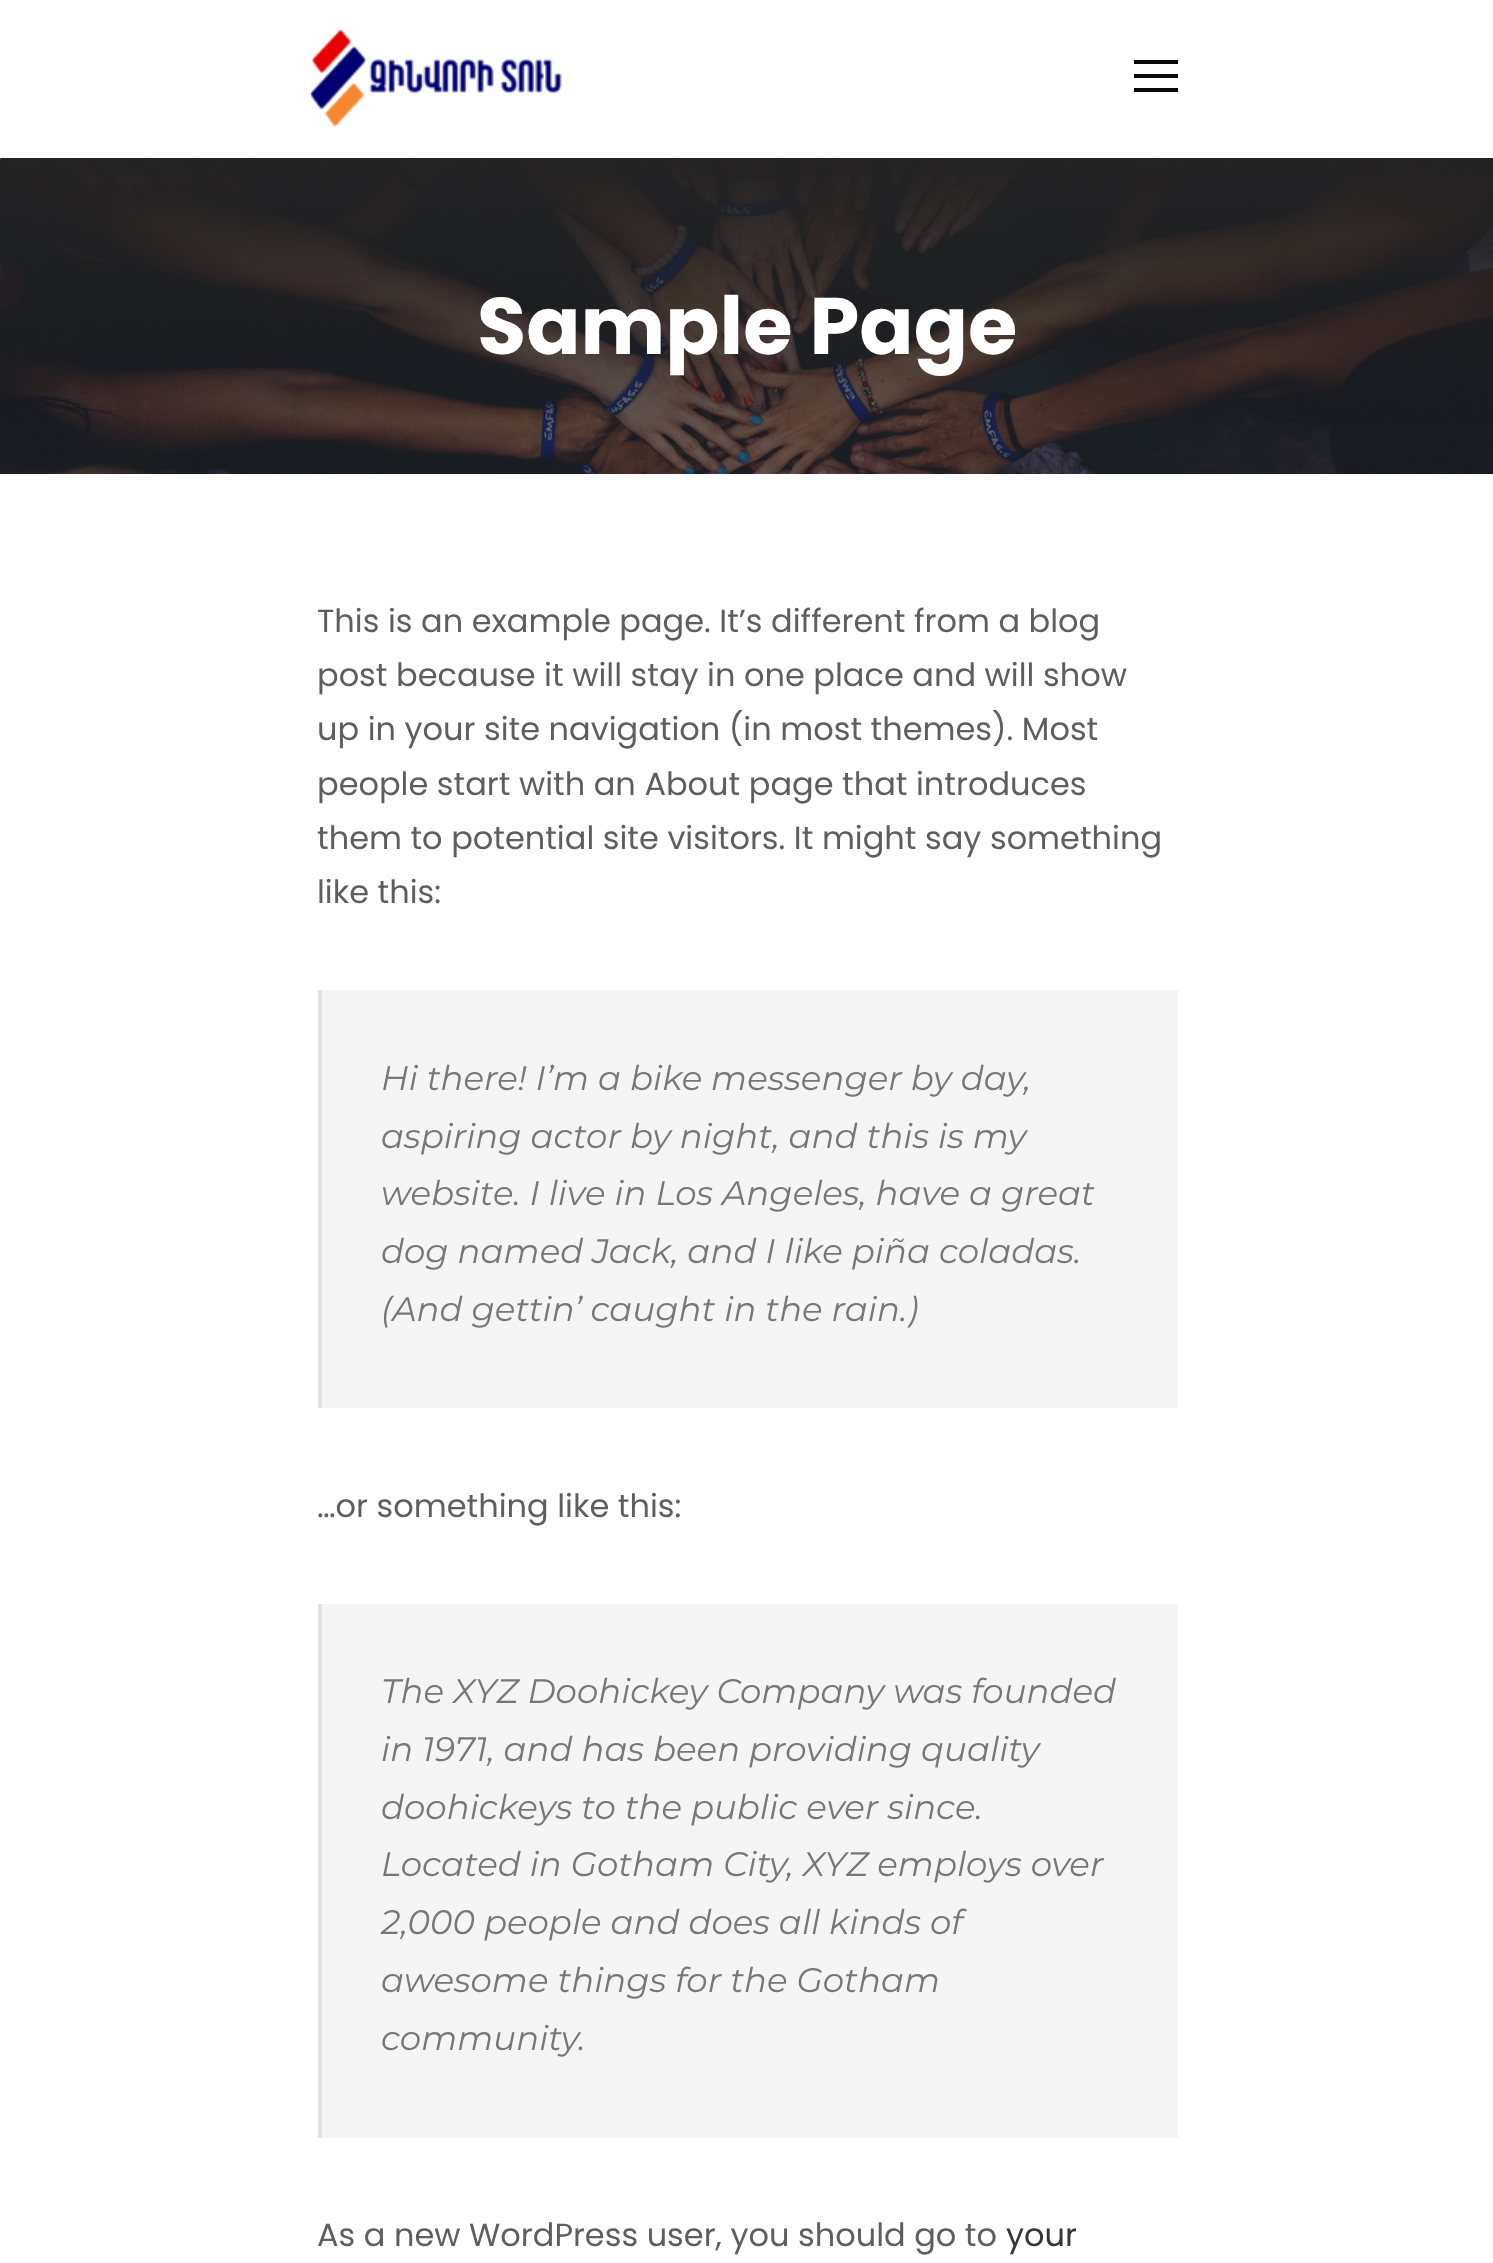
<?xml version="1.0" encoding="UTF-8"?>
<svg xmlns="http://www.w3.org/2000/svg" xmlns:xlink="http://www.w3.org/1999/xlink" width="1493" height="2263">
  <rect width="100%" height="100%" fill="#ffffff" />
  <image x="309" y="30" width="253" height="97" xlink:href="image1.png" />
  <rect x="1134" y="60" width="44" height="4" fill="#0a0a0a" />
  <rect x="1134" y="74" width="44" height="4" fill="#0a0a0a" />
  <rect x="1134" y="88" width="44" height="4" fill="#0a0a0a" />
  <image x="0" y="158" width="1493" height="316" xlink:href="image2.png" />
  <rect x="322" y="990" width="856" height="418" fill="#f5f5f5" />
  <rect x="318" y="990" width="4" height="418" fill="#e2e2e2" />
  <rect x="322" y="1604" width="856" height="534" fill="#f5f5f5" />
  <rect x="318" y="1604" width="4" height="534" fill="#e2e2e2" />
  <text x="477" y="354" style="font-family: Poppins; font-size: 80px; font-weight: bold; fill: #ffffff">Sample Page</text>
  <text x="317" y="632" style="font-family: Poppins; font-size: 32px; fill: #5e5e5e">This is an example page. It’s different from a blog</text>
  <text x="317" y="686" style="font-family: Poppins; font-size: 32px; fill: #5e5e5e">post because it will stay in one place and will show</text>
  <text x="317" y="740" style="font-family: Poppins; font-size: 32px; fill: #5e5e5e">up in your site navigation (in most themes). Most</text>
  <text x="317" y="795" style="font-family: Poppins; font-size: 32px; fill: #5e5e5e">people start with an About page that introduces</text>
  <text x="317" y="849" style="font-family: Poppins; font-size: 32px; fill: #5e5e5e">them to potential site visitors. It might say something</text>
  <text x="317" y="903" style="font-family: Poppins; font-size: 32px; fill: #5e5e5e">like this:</text>
  <text x="381" y="1090" style="font-family: Montserrat; font-size: 34px; font-style: italic; fill: #777777">Hi there! I’m a bike messenger by day,</text>
  <text x="381" y="1148" style="font-family: Montserrat; font-size: 34px; font-style: italic; fill: #777777">aspiring actor by night, and this is my</text>
  <text x="381" y="1205" style="font-family: Montserrat; font-size: 34px; font-style: italic; fill: #777777">website. I live in Los Angeles, have a great</text>
  <text x="381" y="1263" style="font-family: Montserrat; font-size: 34px; font-style: italic; fill: #777777">dog named Jack, and I like piña coladas.</text>
  <text x="381" y="1321" style="font-family: Montserrat; font-size: 34px; font-style: italic; fill: #777777">(And gettin’ caught in the rain.)</text>
  <text x="317" y="1517" style="font-family: Poppins; font-size: 32px; fill: #5e5e5e">…or something like this:</text>
  <text x="381" y="1703" style="font-family: Montserrat; font-size: 34px; font-style: italic; fill: #777777">The XYZ Doohickey Company was founded</text>
  <text x="381" y="1761" style="font-family: Montserrat; font-size: 34px; font-style: italic; fill: #777777">in 1971, and has been providing quality</text>
  <text x="381" y="1819" style="font-family: Montserrat; font-size: 34px; font-style: italic; fill: #777777">doohickeys to the public ever since.</text>
  <text x="381" y="1876" style="font-family: Montserrat; font-size: 34px; font-style: italic; fill: #777777">Located in Gotham City, XYZ employs over</text>
  <text x="381" y="1934" style="font-family: Montserrat; font-size: 34px; font-style: italic; fill: #777777">2,000 people and does all kinds of</text>
  <text x="381" y="1992" style="font-family: Montserrat; font-size: 34px; font-style: italic; fill: #777777">awesome things for the Gotham</text>
  <text x="381" y="2050" style="font-family: Montserrat; font-size: 34px; font-style: italic; fill: #777777">community.</text>
  <text x="317" y="2246" style="font-family: Poppins; font-size: 32px; fill: #5e5e5e">As a new WordPress user, you should go to</text>
  <text x="1006" y="2246" style="font-family: Poppins; font-size: 32px; fill: #353535">your</text>
</svg>
